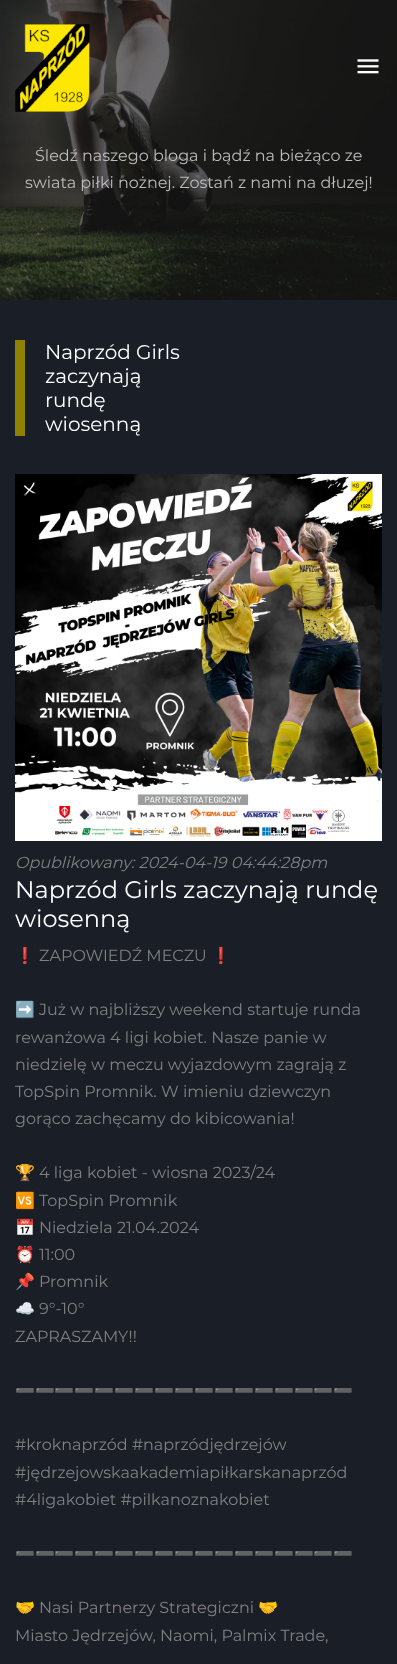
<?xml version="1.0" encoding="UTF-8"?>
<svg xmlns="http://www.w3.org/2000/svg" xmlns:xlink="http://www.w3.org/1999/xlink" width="397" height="1664">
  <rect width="100%" height="100%" fill="#1a1e26" />
  <image x="0" y="0" width="397" height="300" xlink:href="image3.png" />
  <image x="15" y="24" width="75" height="88" xlink:href="image1.png" />
  <image x="357" y="59" width="22" height="15" xlink:href="image2.png" />
  <rect x="15" y="340" width="10" height="96" fill="#908100" />
  <image x="15" y="474" width="367" height="367" xlink:href="image4.png" />
  <text x="35" y="161" style="font-family: Montserrat; font-size: 16px; fill: #bcbcbb">Śledź naszego bloga i bądź na bieżąco ze</text>
  <text x="25" y="188" style="font-family: Montserrat; font-size: 16px; fill: #bcbcbb">swiata piłki nożnej. Zostań z nami na dłuzej!</text>
  <text x="45" y="359" style="font-family: Montserrat; font-size: 20px; fill: #ffffff">Naprzód Girls</text>
  <text x="45" y="383" style="font-family: Montserrat; font-size: 20px; fill: #ffffff">zaczynają</text>
  <text x="45" y="407" style="font-family: Montserrat; font-size: 20px; fill: #ffffff">rundę</text>
  <text x="45" y="431" style="font-family: Montserrat; font-size: 20px; fill: #ffffff">wiosenną</text>
  <text x="15" y="868" style="font-family: Montserrat; font-size: 16px; font-style: italic; fill: #808080">Opublikowany: 2024-04-19 04:44:28pm</text>
  <text x="15" y="898" style="font-family: Montserrat; font-size: 24px; fill: #ffffff">Naprzód Girls zaczynają rundę</text>
  <text x="15" y="927" style="font-family: Montserrat; font-size: 24px; fill: #ffffff">wiosenną</text>
  <text x="15" y="961" style="font-family: Noto Color Emoji; font-size: 16px; fill: #808080">❗</text>
  <text x="39" y="961" style="font-family: Montserrat; font-size: 16px; fill: #808080">ZAPOWIEDŹ MECZU</text>
  <text x="211" y="961" style="font-family: Noto Color Emoji; font-size: 16px; fill: #808080">❗</text>
  <text x="15" y="1015" style="font-family: Noto Color Emoji; font-size: 16px; fill: #808080">➡️</text>
  <text x="39" y="1015" style="font-family: Montserrat; font-size: 16px; fill: #808080">Już w najbliższy weekend startuje runda</text>
  <text x="15" y="1043" style="font-family: Montserrat; font-size: 16px; fill: #808080">rewanżowa 4 ligi kobiet. Nasze panie w</text>
  <text x="15" y="1070" style="font-family: Montserrat; font-size: 16px; fill: #808080">niedzielę w meczu wyjazdowym zagrają z</text>
  <text x="15" y="1097" style="font-family: Montserrat; font-size: 16px; fill: #808080">TopSpin Promnik. W imieniu dziewczyn</text>
  <text x="15" y="1124" style="font-family: Montserrat; font-size: 16px; fill: #808080">gorąco zachęcamy do kibicowania!</text>
  <text x="15" y="1178" style="font-family: Noto Color Emoji; font-size: 16px; fill: #808080">🏆</text>
  <text x="39" y="1178" style="font-family: Montserrat; font-size: 16px; fill: #808080">4 liga kobiet - wiosna 2023/24</text>
  <text x="15" y="1206" style="font-family: Noto Color Emoji; font-size: 16px; fill: #808080">🆚</text>
  <text x="39" y="1206" style="font-family: Montserrat; font-size: 16px; fill: #808080">TopSpin Promnik</text>
  <text x="15" y="1233" style="font-family: Noto Color Emoji; font-size: 16px; fill: #808080">📅</text>
  <text x="39" y="1233" style="font-family: Montserrat; font-size: 16px; fill: #808080">Niedziela 21.04.2024</text>
  <text x="15" y="1260" style="font-family: Noto Color Emoji; font-size: 16px; fill: #808080">⏰</text>
  <text x="39" y="1260" style="font-family: Montserrat; font-size: 16px; fill: #808080">11:00</text>
  <text x="15" y="1287" style="font-family: Noto Color Emoji; font-size: 16px; fill: #808080">📌</text>
  <text x="39" y="1287" style="font-family: Montserrat; font-size: 16px; fill: #808080">Promnik</text>
  <text x="15" y="1314" style="font-family: Noto Color Emoji; font-size: 16px; fill: #808080">☁️</text>
  <text x="39" y="1314" style="font-family: Montserrat; font-size: 16px; fill: #808080">9°-10°</text>
  <text x="15" y="1342" style="font-family: Montserrat; font-size: 16px; fill: #808080">ZAPRASZAMY!!</text>
  <text x="15" y="1396" style="font-family: Noto Color Emoji; font-size: 16px; fill: #808080">➖➖➖➖➖➖➖➖➖➖➖➖➖➖➖➖➖</text>
  <text x="15" y="1450" style="font-family: Montserrat; font-size: 16px; fill: #808080">#kroknaprzód #naprzódjędrzejów</text>
  <text x="15" y="1478" style="font-family: Montserrat; font-size: 16px; fill: #808080">#jędrzejowskaakademiapiłkarskanaprzód</text>
  <text x="15" y="1505" style="font-family: Montserrat; font-size: 16px; fill: #808080">#4ligakobiet #pilkanoznakobiet</text>
  <text x="15" y="1559" style="font-family: Noto Color Emoji; font-size: 16px; fill: #808080">➖➖➖➖➖➖➖➖➖➖➖➖➖➖➖➖➖</text>
  <text x="15" y="1613" style="font-family: Noto Color Emoji; font-size: 16px; fill: #808080">🤝</text>
  <text x="39" y="1613" style="font-family: Montserrat; font-size: 16px; fill: #808080">Nasi Partnerzy Strategiczni</text>
  <text x="258" y="1613" style="font-family: Noto Color Emoji; font-size: 16px; fill: #808080">🤝</text>
  <text x="15" y="1641" style="font-family: Montserrat; font-size: 16px; fill: #808080">Miasto Jędrzejów, Naomi, Palmix Trade,</text>
</svg>
